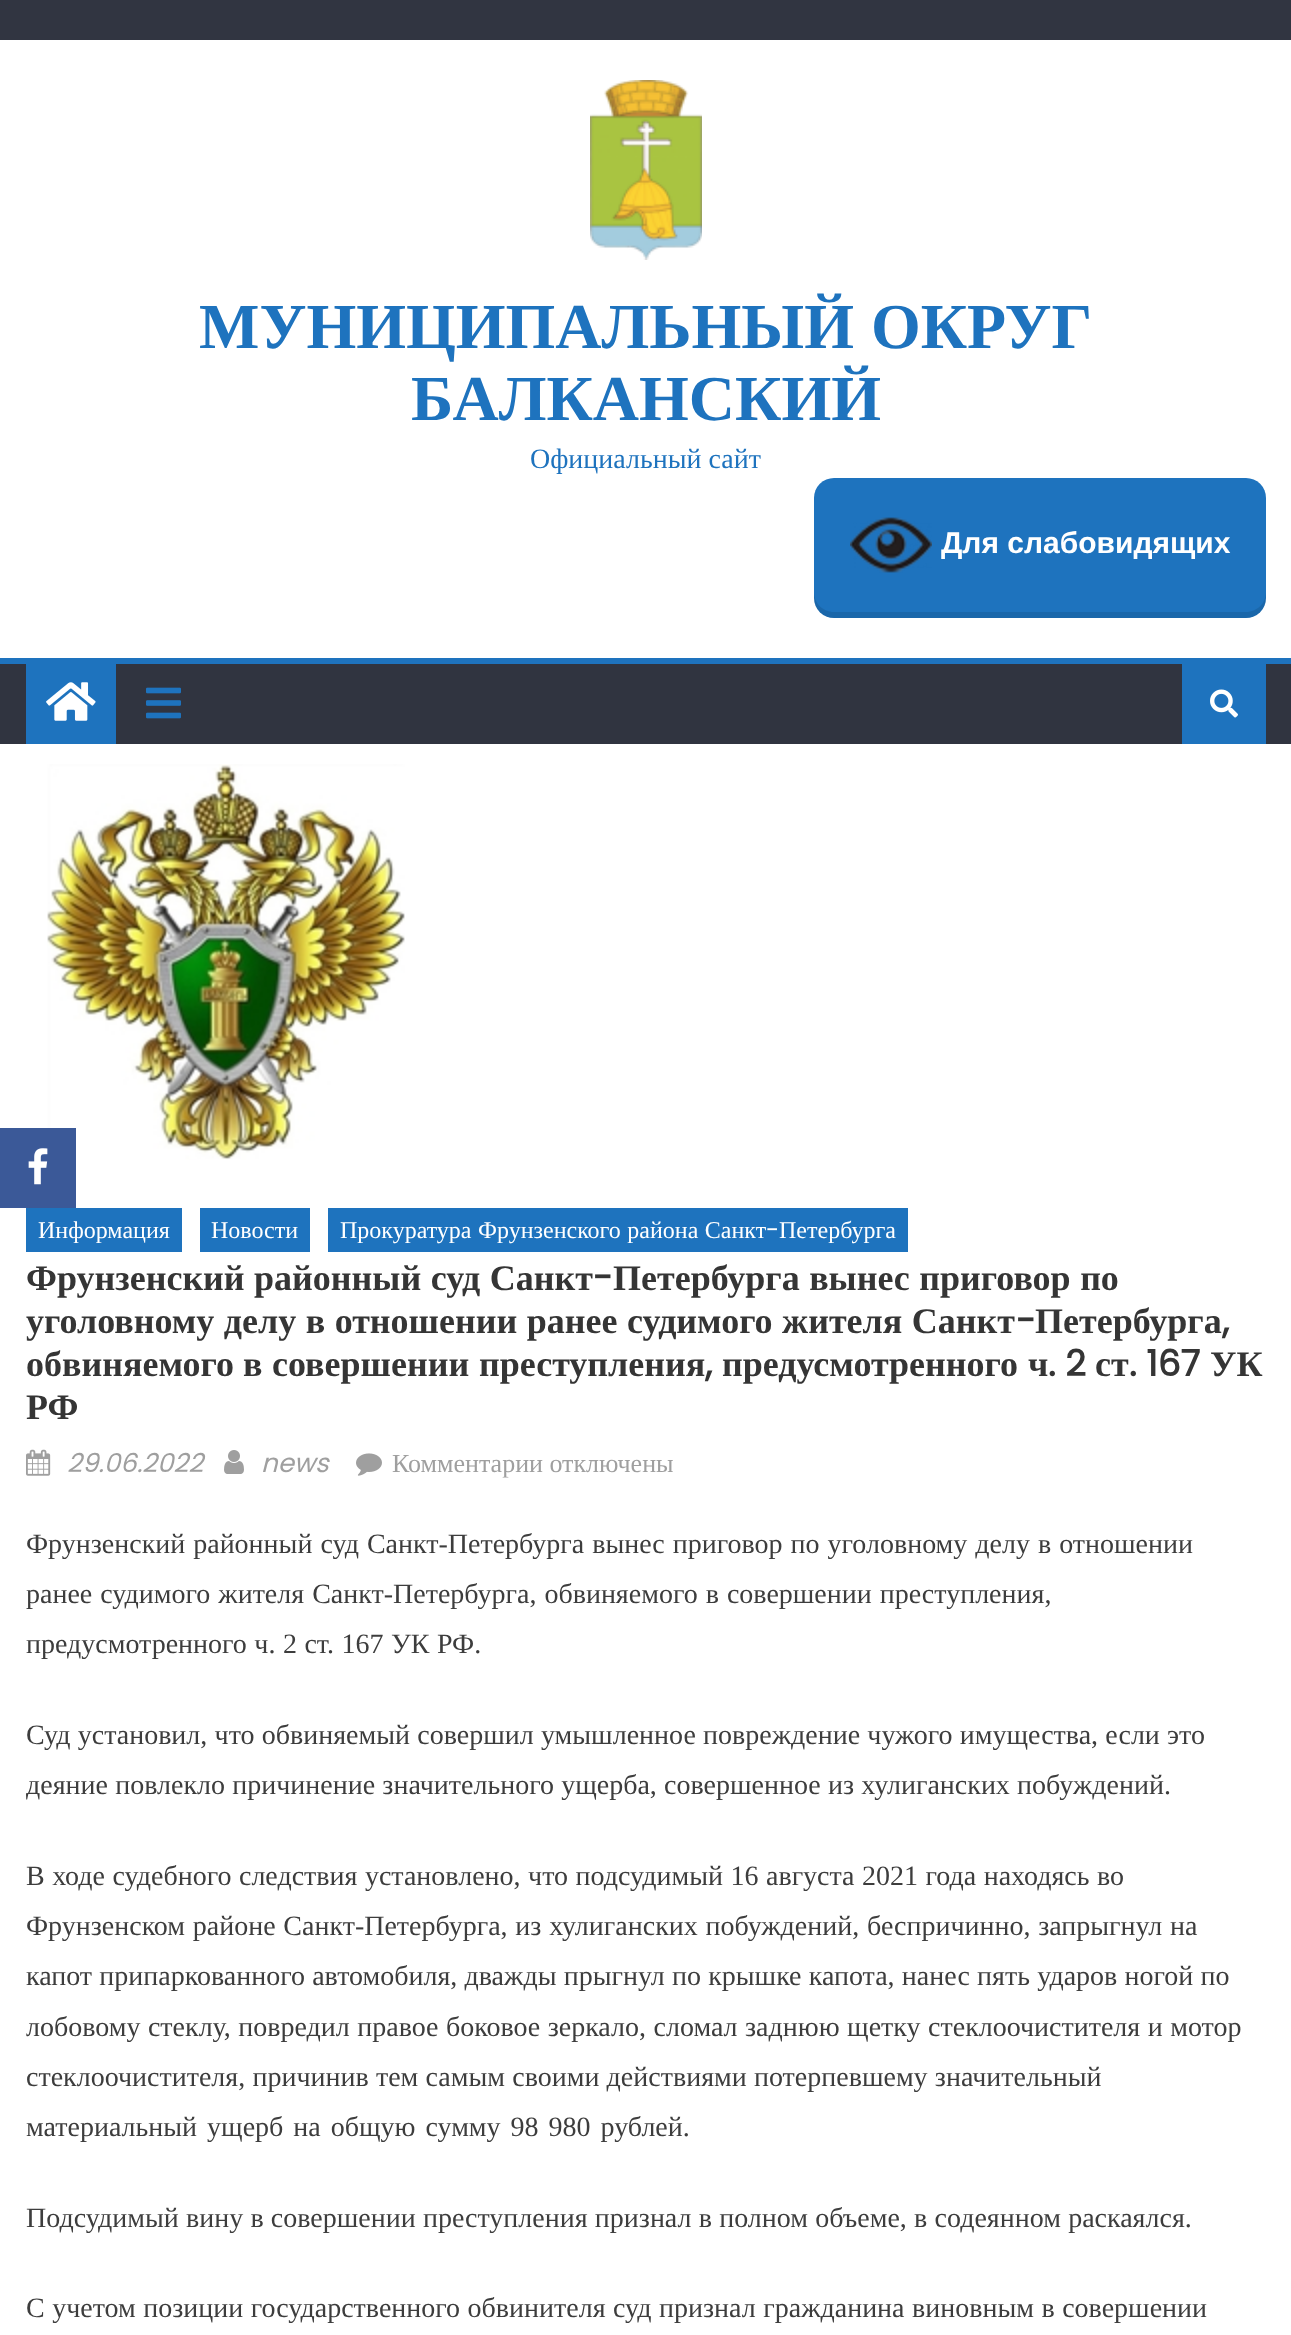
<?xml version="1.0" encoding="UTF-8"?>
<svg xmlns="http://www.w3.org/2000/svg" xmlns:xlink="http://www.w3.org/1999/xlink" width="1291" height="2335">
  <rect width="100%" height="100%" fill="#ffffff" />
  <rect width="1291" height="40" fill="#313541" />
  <image x="590" y="80" width="112" height="180" xlink:href="image1.png" />
  <rect x="814" y="478" width="452" height="140" rx="20" fill="#1e73be" />
  <path d="M 814 592 v 6 c 0 11 9 20 20 20 h 412 c 11 0 20 -9 20 -20 v -6 c 0 11 -9 20 -20 20 h -412 c -11 0 -20 -9 -20 -20 z" fill="#000000" fill-opacity="0.1" />
  <image x="850" y="517" width="82" height="56" xlink:href="image2.png" />
  <rect y="664" width="1291" height="80" fill="#303440" />
  <rect y="658" width="1291" height="6" fill="#1e73be" />
  <rect x="26" y="664" width="90" height="80" fill="#1e73be" />
  <image x="46" y="682" width="50" height="39" xlink:href="image3.png" />
  <image x="146" y="687" width="35" height="32" xlink:href="image4.png" />
  <rect x="1182" y="664" width="84" height="80" fill="#1e73be" />
  <image x="1210" y="689" width="28" height="29" xlink:href="image5.png" />
  <image x="47" y="764" width="358" height="396" xlink:href="image6.png" />
  <rect x="26" y="1208" width="156" height="44" fill="#1e73be" />
  <rect x="200" y="1208" width="110" height="44" fill="#1e73be" />
  <rect x="328" y="1208" width="580" height="44" fill="#1e73be" />
  <image x="26" y="1449" width="25" height="27" xlink:href="image7.png" />
  <image x="224" y="1450" width="20" height="24" xlink:href="image8.png" />
  <image x="356" y="1453" width="26" height="23" xlink:href="image9.png" />
  <rect y="1128" width="76" height="80" fill="#3b5998" />
  <image x="28" y="1148" width="20" height="37" xlink:href="image10.png" />
  <text x="199" y="348" word-spacing="1" style="font-family: Liberation Serif; font-size: 64px; font-weight: bold; fill: #1e73be">МУНИЦИПАЛЬНЫЙ ОКРУГ</text>
  <text x="411" y="420" style="font-family: Liberation Serif; font-size: 64px; font-weight: bold; fill: #1e73be">БАЛКАНСКИЙ</text>
  <text x="530" y="468" style="font-family: Liberation Serif; font-size: 28px; fill: #1e73be">Официальный сайт</text>
  <text x="941" y="553" style="font-family: Liberation Sans; font-size: 30px; font-weight: bold; fill: #ffffff">Для слабовидящих</text>
  <text x="38" y="1238" style="font-family: Liberation Serif; font-size: 24px; fill: #ffffff">Информация</text>
  <text x="211" y="1238" style="font-family: Liberation Serif; font-size: 24px; fill: #ffffff">Новости</text>
  <text x="340" y="1238" word-spacing="0.5" style="font-family: Liberation Serif; font-size: 24px; fill: #ffffff">Прокуратура Фрунзенского района Санкт</text>
  <text x="766" y="1238" style="font-family: Poppins; font-size: 24px; fill: #ffffff">-</text>
  <text x="779" y="1238" style="font-family: Liberation Serif; font-size: 24px; fill: #ffffff">Петербурга</text>
  <text x="26" y="1290" word-spacing="0.5" style="font-family: Liberation Serif; font-size: 36px; font-weight: bold; fill: #353535">Фрунзенский районный суд Санкт</text>
  <text x="593" y="1290" style="font-family: Poppins; font-size: 36px; font-weight: bold; fill: #353535">-</text>
  <text x="613" y="1290" word-spacing="0.5" style="font-family: Liberation Serif; font-size: 36px; font-weight: bold; fill: #353535">Петербурга вынес приговор по</text>
  <text x="26" y="1333" word-spacing="0.5" style="font-family: Liberation Serif; font-size: 36px; font-weight: bold; fill: #353535">уголовному делу в отношении ранее судимого жителя Санкт</text>
  <text x="1016" y="1333" style="font-family: Poppins; font-size: 36px; font-weight: bold; fill: #353535">-</text>
  <text x="1035" y="1333" style="font-family: Liberation Serif; font-size: 36px; font-weight: bold; fill: #353535">Петербурга</text>
  <text x="1222" y="1333" style="font-family: Poppins; font-size: 36px; font-weight: bold; fill: #353535">,</text>
  <text x="26" y="1376" style="font-family: Liberation Serif; font-size: 36px; font-weight: bold; fill: #353535">обвиняемого</text>
  <text x="243" y="1376" style="font-family: Liberation Serif; font-size: 36px; font-weight: bold; fill: #353535">в</text>
  <text x="272" y="1376" style="font-family: Liberation Serif; font-size: 36px; font-weight: bold; fill: #353535">совершении</text>
  <text x="479" y="1376" style="font-family: Liberation Serif; font-size: 36px; font-weight: bold; fill: #353535">преступления</text>
  <text x="705" y="1376" style="font-family: Poppins; font-size: 36px; font-weight: bold; fill: #353535">,</text>
  <text x="722" y="1376" style="font-family: Liberation Serif; font-size: 36px; font-weight: bold; fill: #353535">предусмотренного</text>
  <text x="1028" y="1376" style="font-family: Liberation Serif; font-size: 36px; font-weight: bold; fill: #353535">ч</text>
  <text x="1048" y="1376" style="font-family: Poppins; font-size: 36px; font-weight: bold; fill: #353535">. 2</text>
  <text x="1095" y="1376" style="font-family: Liberation Serif; font-size: 36px; font-weight: bold; fill: #353535">ст</text>
  <text x="1129" y="1376" style="font-family: Poppins; font-size: 36px; font-weight: bold; fill: #353535">. 167</text>
  <text x="1210" y="1376" style="font-family: Liberation Serif; font-size: 36px; font-weight: bold; fill: #353535">УК</text>
  <text x="26" y="1419" style="font-family: Liberation Serif; font-size: 36px; font-weight: bold; fill: #353535">РФ</text>
  <text x="67" y="1472" style="font-family: Poppins; font-size: 26px; font-style: italic; fill: #9f9f9f">29.06.2022</text>
  <text x="261" y="1472" style="font-family: Poppins; font-size: 26px; font-style: italic; fill: #9f9f9f">news</text>
  <text x="392" y="1472" style="font-family: Liberation Serif; font-size: 26px; fill: #9f9f9f">Комментарии отключены</text>
  <text x="26" y="1553" word-spacing="1" style="font-family: Liberation Serif; font-size: 28px; fill: #3d3d3d">Фрунзенский районный суд Санкт-Петербурга вынес приговор по уголовному делу в отношении</text>
  <text x="26" y="1603" word-spacing="1" style="font-family: Liberation Serif; font-size: 28px; fill: #3d3d3d">ранее судимого жителя Санкт-Петербурга, обвиняемого в совершении преступления,</text>
  <text x="26" y="1653" word-spacing="0.5" style="font-family: Liberation Serif; font-size: 28px; fill: #3d3d3d">предусмотренного ч. 2 ст. 167 УК РФ.</text>
  <text x="26" y="1744" word-spacing="0.25" style="font-family: Liberation Serif; font-size: 28px; fill: #3d3d3d">Суд установил, что обвиняемый совершил умышленное повреждение чужого имущества, если это</text>
  <text x="26" y="1794" word-spacing="0.25" style="font-family: Liberation Serif; font-size: 28px; fill: #3d3d3d">деяние повлекло причинение значительного ущерба, совершенное из хулиганских побуждений.</text>
  <text x="26" y="1885" word-spacing="0.5" style="font-family: Liberation Serif; font-size: 28px; fill: #3d3d3d">В ходе судебного следствия установлено, что подсудимый 16 августа 2021 года находясь во</text>
  <text x="26" y="1935" word-spacing="0.75" style="font-family: Liberation Serif; font-size: 28px; fill: #3d3d3d">Фрунзенском районе Санкт-Петербурга, из хулиганских побуждений, беспричинно, запрыгнул на</text>
  <text x="26" y="1985" word-spacing="0.25" style="font-family: Liberation Serif; font-size: 28px; fill: #3d3d3d">капот припаркованного автомобиля, дважды прыгнул по крышке капота, нанес пять ударов ногой по</text>
  <text x="26" y="2036" word-spacing="0.5" style="font-family: Liberation Serif; font-size: 28px; fill: #3d3d3d">лобовому стеклу, повредил правое боковое зеркало, сломал заднюю щетку стеклоочистителя и мотор</text>
  <text x="26" y="2086" word-spacing="0.25" style="font-family: Liberation Serif; font-size: 28px; fill: #3d3d3d">стеклоочистителя, причинив тем самым своими действиями потерпевшему значительный</text>
  <text x="26" y="2136" word-spacing="3" style="font-family: Liberation Serif; font-size: 28px; fill: #3d3d3d">материальный ущерб на общую сумму 98 980 рублей.</text>
  <text x="26" y="2227" word-spacing="0.25" style="font-family: Liberation Serif; font-size: 28px; fill: #3d3d3d">Подсудимый вину в совершении преступления признал в полном объеме, в содеянном раскаялся.</text>
  <text x="26" y="2317" word-spacing="0.5" style="font-family: Liberation Serif; font-size: 28px; fill: #3d3d3d">С учетом позиции государственного обвинителя суд признал гражданина виновным в совершении</text>
</svg>
